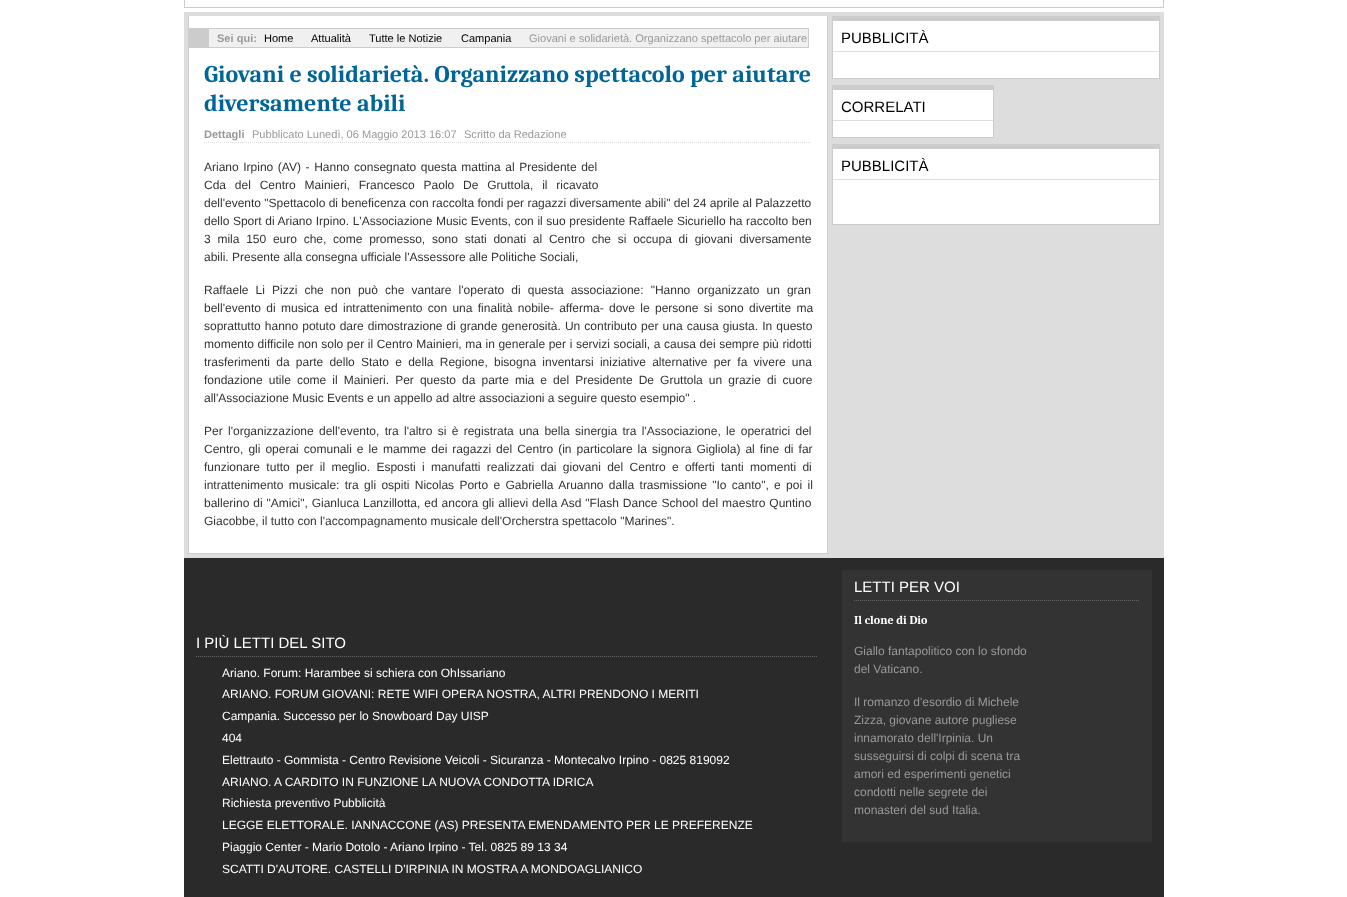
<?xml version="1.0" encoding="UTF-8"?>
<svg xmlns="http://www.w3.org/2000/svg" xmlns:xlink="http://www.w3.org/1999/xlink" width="1347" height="897">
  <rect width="100%" height="100%" fill="#ffffff" />
  <rect x="184.5" y="-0.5" width="979" height="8" fill="none" stroke="#cccccc" />
  <rect x="184" y="12" width="980" height="546" fill="#dddddd" />
  <rect x="189" y="16" width="638" height="537" fill="#ffffff" />
  <rect x="827" y="16" width="1" height="538" fill="#cccccc" />
  <rect x="188" y="553" width="640" height="1" fill="#cccccc" />
  <rect x="188" y="16" width="1" height="538" fill="#cccccc" />
  <rect x="209" y="29" width="599" height="18" fill="#f0f0f0" />
  <rect x="209" y="28" width="600" height="1" fill="#cccccc" />
  <rect x="808" y="28" width="1" height="20" fill="#cccccc" />
  <rect x="209" y="47" width="600" height="1" fill="#cccccc" />
  <rect x="189" y="28" width="20" height="20" fill="#cccccc" />
  <path d="M 204 142.5 h 608" fill="none" stroke="#dddddd" stroke-dasharray="1 1" />
  <rect x="833" y="21" width="326" height="57" fill="#ffffff" />
  <rect x="832.5" y="16.5" width="327" height="62" fill="none" stroke="#cccccc" />
  <rect x="833" y="17" width="326" height="4" fill="#cccccc" />
  <rect x="833" y="51" width="326" height="1" fill="#dddddd" />
  <rect x="833" y="90" width="160" height="47" fill="#ffffff" />
  <rect x="832.5" y="85.5" width="161" height="52" fill="none" stroke="#cccccc" />
  <rect x="833" y="86" width="160" height="4" fill="#cccccc" />
  <rect x="833" y="120" width="160" height="1" fill="#dddddd" />
  <rect x="833" y="149" width="326" height="75" fill="#ffffff" />
  <rect x="832.5" y="144.5" width="327" height="80" fill="none" stroke="#cccccc" />
  <rect x="833" y="145" width="326" height="4" fill="#cccccc" />
  <rect x="833" y="179" width="326" height="1" fill="#dddddd" />
  <rect x="184" y="558" width="980" height="339" fill="#2a2a2a" />
  <path d="M 196 656.5 h 622" fill="none" stroke="#666666" stroke-dasharray="1 1" />
  <rect x="842" y="570" width="310" height="272" fill="#333333" />
  <path d="M 854 600.5 h 286" fill="none" stroke="#666666" stroke-dasharray="1 1" />
  <text x="217" y="42" style="font-family: Liberation Sans; font-size: 11.05px; font-weight: bold; fill: #999999">Sei qui:</text>
  <text x="264" y="42" style="font-family: Liberation Sans; font-size: 11.05px; fill: #000000">Home</text>
  <text x="311" y="42" style="font-family: Liberation Sans; font-size: 11.05px; fill: #000000">Attualità</text>
  <text x="369" y="42" style="font-family: Liberation Sans; font-size: 11.05px; fill: #000000">Tutte le Notizie</text>
  <text x="461" y="42" style="font-family: Liberation Sans; font-size: 11.05px; fill: #000000">Campania</text>
  <text x="529" y="42" style="font-family: Liberation Sans; font-size: 11.05px; fill: #999999">Giovani e solidarietà. Organizzano spettacolo per aiutare</text>
  <text x="204" y="82" style="font-family: Caladea; font-size: 24px; font-weight: bold; fill: #006699">Giovani e solidarietà. Organizzano spettacolo per aiutare</text>
  <text x="204" y="111" style="font-family: Caladea; font-size: 24px; font-weight: bold; fill: #006699">diversamente abili</text>
  <text x="204" y="138" style="font-family: Liberation Sans; font-size: 11.05px; font-weight: bold; fill: #999999">Dettagli</text>
  <text x="252" y="138" style="font-family: Liberation Sans; font-size: 11.05px; fill: #999999">Pubblicato Lunedì, 06 Maggio 2013 16:07</text>
  <text x="464" y="138" style="font-family: Liberation Sans; font-size: 11.05px; fill: #999999">Scritto da Redazione</text>
  <text x="204" y="171" word-spacing="1.25" style="font-family: Liberation Sans; font-size: 12px; fill: #333333">Ariano Irpino (AV) - Hanno consegnato questa mattina al Presidente del</text>
  <text x="204" y="189" word-spacing="5.5" style="font-family: Liberation Sans; font-size: 12px; fill: #333333">Cda del Centro Mainieri, Francesco Paolo De Gruttola, il ricavato</text>
  <text x="204" y="207" style="font-family: Liberation Sans; font-size: 12px; fill: #333333">dell'evento "Spettacolo di beneficenza con raccolta fondi per ragazzi diversamente abili" del 24 aprile al Palazzetto</text>
  <text x="204" y="225" word-spacing="0.25" style="font-family: Liberation Sans; font-size: 12px; fill: #333333">dello Sport di Ariano Irpino. L'Associazione Music Events, con il suo presidente Raffaele Sicuriello ha raccolto ben</text>
  <text x="204" y="243" word-spacing="3.4" style="font-family: Liberation Sans; font-size: 12px; fill: #333333">3 mila 150 euro che, come promesso, sono stati donati al Centro che si occupa di giovani diversamente</text>
  <text x="204" y="261" style="font-family: Liberation Sans; font-size: 12px; fill: #333333">abili. Presente alla consegna ufficiale l'Assessore alle Politiche Sociali,</text>
  <text x="204" y="294" word-spacing="3.75" style="font-family: Liberation Sans; font-size: 12px; fill: #333333">Raffaele Li Pizzi che non può che vantare l'operato di questa associazione: "Hanno organizzato un gran</text>
  <text x="204" y="312" word-spacing="2" style="font-family: Liberation Sans; font-size: 12px; fill: #333333">bell'evento di musica ed intrattenimento con una finalità nobile- afferma- dove le persone si sono divertite ma</text>
  <text x="204" y="330" word-spacing="0.75" style="font-family: Liberation Sans; font-size: 12px; fill: #333333">soprattutto hanno potuto dare dimostrazione di grande generosità. Un contributo per una causa giusta. In questo</text>
  <text x="204" y="348" word-spacing="0.25" style="font-family: Liberation Sans; font-size: 12px; fill: #333333">momento difficile non solo per il Centro Mainieri, ma in generale per i servizi sociali, a causa dei sempre più ridotti</text>
  <text x="204" y="366" word-spacing="2.9" style="font-family: Liberation Sans; font-size: 12px; fill: #333333">trasferimenti da parte dello Stato e della Regione, bisogna inventarsi iniziative alternative per fa vivere una</text>
  <text x="204" y="384" word-spacing="2.75" style="font-family: Liberation Sans; font-size: 12px; fill: #333333">fondazione utile come il Mainieri. Per questo da parte mia e del Presidente De Gruttola un grazie di cuore</text>
  <text x="204" y="402" style="font-family: Liberation Sans; font-size: 12px; fill: #333333">all'Associazione Music Events e un appello ad altre associazioni a seguire questo esempio" .</text>
  <text x="204" y="435" word-spacing="2" style="font-family: Liberation Sans; font-size: 12px; fill: #333333">Per l'organizzazione dell'evento, tra l'altro si è registrata una bella sinergia tra l'Associazione, le operatrici del</text>
  <text x="204" y="453" word-spacing="1.7" style="font-family: Liberation Sans; font-size: 12px; fill: #333333">Centro, gli operai comunali e le mamme dei ragazzi del Centro (in particolare la signora Gigliola) al fine di far</text>
  <text x="204" y="471" word-spacing="3" style="font-family: Liberation Sans; font-size: 12px; fill: #333333">funzionare tutto per il meglio. Esposti i manufatti realizzati dai giovani del Centro e offerti tanti momenti di</text>
  <text x="204" y="489" word-spacing="2" style="font-family: Liberation Sans; font-size: 12px; fill: #333333">intrattenimento musicale: tra gli ospiti Nicolas Porto e Gabriella Aruanno dalla trasmissione "Io canto", e poi il</text>
  <text x="204" y="507" word-spacing="0.6" style="font-family: Liberation Sans; font-size: 12px; fill: #333333">ballerino di "Amici", Gianluca Lanzillotta, ed ancora gli allievi della Asd "Flash Dance School del maestro Quntino</text>
  <text x="204" y="525" style="font-family: Liberation Sans; font-size: 12px; fill: #333333">Giacobbe, il tutto con l'accompagnamento musicale dell'Orcherstra spettacolo "Marines".</text>
  <text x="841" y="43" style="font-family: Liberation Sans; font-size: 15px; fill: #000000">PUBBLICITÀ</text>
  <text x="841" y="112" style="font-family: Liberation Sans; font-size: 15px; fill: #000000">CORRELATI</text>
  <text x="841" y="171" style="font-family: Liberation Sans; font-size: 15px; fill: #000000">PUBBLICITÀ</text>
  <text x="196" y="648" style="font-family: Liberation Sans; font-size: 15px; fill: #ffffff">I PIÙ LETTI DEL SITO</text>
  <text x="222" y="677" style="font-family: Liberation Sans; font-size: 12px; fill: #ffffff">Ariano. Forum: Harambee si schiera con OhIssariano</text>
  <text x="222" y="698" style="font-family: Liberation Sans; font-size: 12px; fill: #ffffff">ARIANO. FORUM GIOVANI: RETE WIFI OPERA NOSTRA, ALTRI PRENDONO I MERITI</text>
  <text x="222" y="720" style="font-family: Liberation Sans; font-size: 12px; fill: #ffffff">Campania. Successo per lo Snowboard Day UISP</text>
  <text x="222" y="742" style="font-family: Liberation Sans; font-size: 12px; fill: #ffffff">404</text>
  <text x="222" y="764" style="font-family: Liberation Sans; font-size: 12px; fill: #ffffff">Elettrauto - Gommista - Centro Revisione Veicoli - Sicuranza - Montecalvo Irpino - 0825 819092</text>
  <text x="222" y="786" style="font-family: Liberation Sans; font-size: 12px; fill: #ffffff">ARIANO. A CARDITO IN FUNZIONE LA NUOVA CONDOTTA IDRICA</text>
  <text x="222" y="807" style="font-family: Liberation Sans; font-size: 12px; fill: #ffffff">Richiesta preventivo Pubblicità</text>
  <text x="222" y="829" style="font-family: Liberation Sans; font-size: 12px; fill: #ffffff">LEGGE ELETTORALE. IANNACCONE (AS) PRESENTA EMENDAMENTO PER LE PREFERENZE</text>
  <text x="222" y="851" style="font-family: Liberation Sans; font-size: 12px; fill: #ffffff">Piaggio Center - Mario Dotolo - Ariano Irpino - Tel. 0825 89 13 34</text>
  <text x="222" y="873" style="font-family: Liberation Sans; font-size: 12px; fill: #ffffff">SCATTI D'AUTORE. CASTELLI D'IRPINIA IN MOSTRA A MONDOAGLIANICO</text>
  <text x="854" y="592" style="font-family: Liberation Sans; font-size: 15px; fill: #ffffff">LETTI PER VOI</text>
  <text x="854" y="624" style="font-family: Caladea; font-size: 12px; font-weight: bold; fill: #ffffff">Il clone di Dio</text>
  <text x="854" y="655" style="font-family: Liberation Sans; font-size: 12px; fill: #999999">Giallo fantapolitico con lo sfondo</text>
  <text x="854" y="673" style="font-family: Liberation Sans; font-size: 12px; fill: #999999">del Vaticano.</text>
  <text x="854" y="706" style="font-family: Liberation Sans; font-size: 12px; fill: #999999">Il romanzo d'esordio di Michele</text>
  <text x="854" y="724" style="font-family: Liberation Sans; font-size: 12px; fill: #999999">Zizza, giovane autore pugliese</text>
  <text x="854" y="742" style="font-family: Liberation Sans; font-size: 12px; fill: #999999">innamorato dell'Irpinia. Un</text>
  <text x="854" y="760" style="font-family: Liberation Sans; font-size: 12px; fill: #999999">susseguirsi di colpi di scena tra</text>
  <text x="854" y="778" style="font-family: Liberation Sans; font-size: 12px; fill: #999999">amori ed esperimenti genetici</text>
  <text x="854" y="796" style="font-family: Liberation Sans; font-size: 12px; fill: #999999">condotti nelle segrete dei</text>
  <text x="854" y="814" style="font-family: Liberation Sans; font-size: 12px; fill: #999999">monasteri del sud Italia.</text>
</svg>
